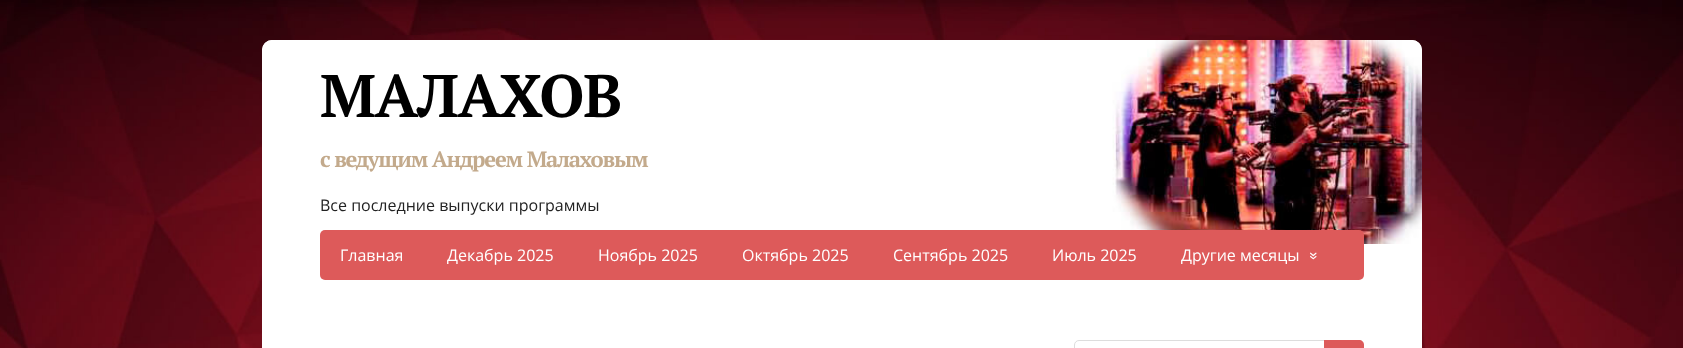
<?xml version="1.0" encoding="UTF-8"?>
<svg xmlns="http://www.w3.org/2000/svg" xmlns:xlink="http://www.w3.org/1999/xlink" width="1683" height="348">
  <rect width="100%" height="100%" fill="#ffffff" />
  <image x="0" y="0" width="1683" height="348" xlink:href="image1.png" />
  <rect x="262" y="40" width="1160" height="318" rx="10" fill="#ffffff" />
  <image x="262" y="40" width="1160" height="204" xlink:href="image2.png" />
  <rect x="320" y="230" width="1044" height="50" rx="5" fill="#dd5a5a" />
  <rect x="1074.5" y="340.5" width="282" height="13" rx="4.5" fill="none" stroke="#dddddd" />
  <path d="M 1324 340 h 35 c 3 0 5 2 5 5 v 3 c 0 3 -2 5 -5 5 h -35 z" fill="#dd5a5a" />
  <text x="320" y="117" style="font-family: PT Serif; font-size: 60px; font-weight: bold; letter-spacing: -1.2px; fill: #000000">МАЛАХОВ</text>
  <text x="320" y="167" style="font-family: PT Serif; font-size: 22px; font-weight: bold; letter-spacing: -1.2px; fill: #c3aa8c">с ведущим Андреем Малаховым</text>
  <text x="320" y="211" style="font-family: Open Sans; font-size: 16px; fill: #222222">Все последние выпуски программы</text>
  <text x="340" y="261" style="font-family: Open Sans; font-size: 16px; fill: #ffffff">Главная</text>
  <text x="447" y="261" style="font-family: Open Sans; font-size: 16px; fill: #ffffff">Декабрь 2025</text>
  <text x="598" y="261" style="font-family: Open Sans; font-size: 16px; fill: #ffffff">Ноябрь 2025</text>
  <text x="742" y="261" style="font-family: Open Sans; font-size: 16px; fill: #ffffff">Октябрь 2025</text>
  <text x="893" y="261" style="font-family: Open Sans; font-size: 16px; fill: #ffffff">Сентябрь 2025</text>
  <text x="1052" y="261" style="font-family: Open Sans; font-size: 16px; fill: #ffffff">Июль 2025</text>
  <text x="1181" y="261" style="font-family: Open Sans; font-size: 16px; fill: #ffffff">Другие месяцы</text>
  <text x="1309" y="252" transform="rotate(90 1309 252)" style="font-family: Open Sans; font-size: 16px; fill: #ffffff">»</text>
</svg>
